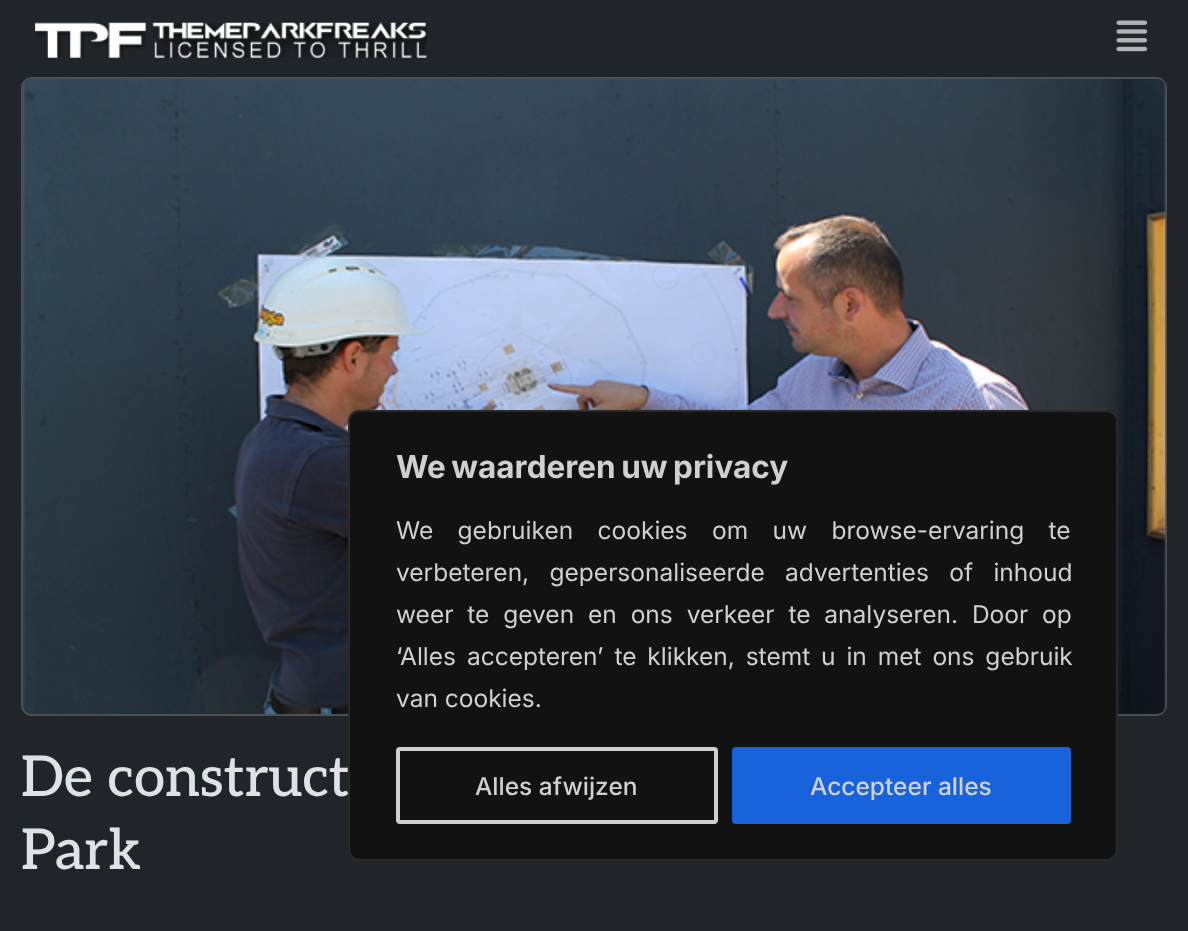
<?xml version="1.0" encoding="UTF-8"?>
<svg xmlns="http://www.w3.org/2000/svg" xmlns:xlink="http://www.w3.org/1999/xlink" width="1188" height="931">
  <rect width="100%" height="100%" fill="#212529" />
  <image x="35" y="22" width="392" height="36" xlink:href="image1.png" />
  <image x="1116" y="20" width="32" height="32" xlink:href="image2.png" />
  <rect x="22" y="78" width="1144" height="637" rx="10" fill="none" stroke="#495057" stroke-width="2" />
  <image x="23" y="79" width="1143" height="635" xlink:href="image3.png" />
  <text x="21" y="796" style="font-family: Aleo; font-size: 56.25px; font-weight: 500; fill: #dee2e6">De construct</text>
  <rect x="349" y="411" width="768" height="449" rx="10" fill="#121212" stroke="#2a2a2a" stroke-width="2" />
  <rect x="734" y="749" width="335" height="73" rx="2" fill="#1863dc" stroke="#1863dc" stroke-width="4" />
  <text x="810" y="795" style="font-family: Inter; font-size: 24.5px; font-weight: 500; fill: #d0d0d0">Accepteer alles</text>
  <rect x="398" y="749" width="318" height="73" rx="2" fill="none" stroke="#d0d0d0" stroke-width="4" />
  <text x="475" y="795" style="font-family: Inter; font-size: 24.5px; font-weight: 500; fill: #d0d0d0">Alles afwijzen</text>
  <text x="396" y="707" style="font-family: Inter; font-size: 24.5px; fill: #d0d0d0">van cookies.</text>
  <text x="396" y="665" word-spacing="4" style="font-family: Inter; font-size: 24.5px; fill: #d0d0d0">‘Alles accepteren’ te klikken, stemt u in met ons gebruik</text>
  <text x="396" y="623" word-spacing="7" style="font-family: Inter; font-size: 24.5px; fill: #d0d0d0">weer te geven en ons verkeer te analyseren. Door op</text>
  <text x="396" y="581" word-spacing="13.5" style="font-family: Inter; font-size: 24.5px; fill: #d0d0d0">verbeteren, gepersonaliseerde advertenties of inhoud</text>
  <text x="396" y="539" word-spacing="17.5" style="font-family: Inter; font-size: 24.5px; fill: #d0d0d0">We gebruiken cookies om uw browse-ervaring te</text>
  <text x="396" y="478" word-spacing="-2" style="font-family: Inter; font-size: 31.5px; font-weight: bold; fill: #d0d0d0">We waarderen uw privacy</text>
  <text x="21" y="869" style="font-family: Aleo; font-size: 56.25px; font-weight: 500; fill: #dee2e6">Park</text>
</svg>
